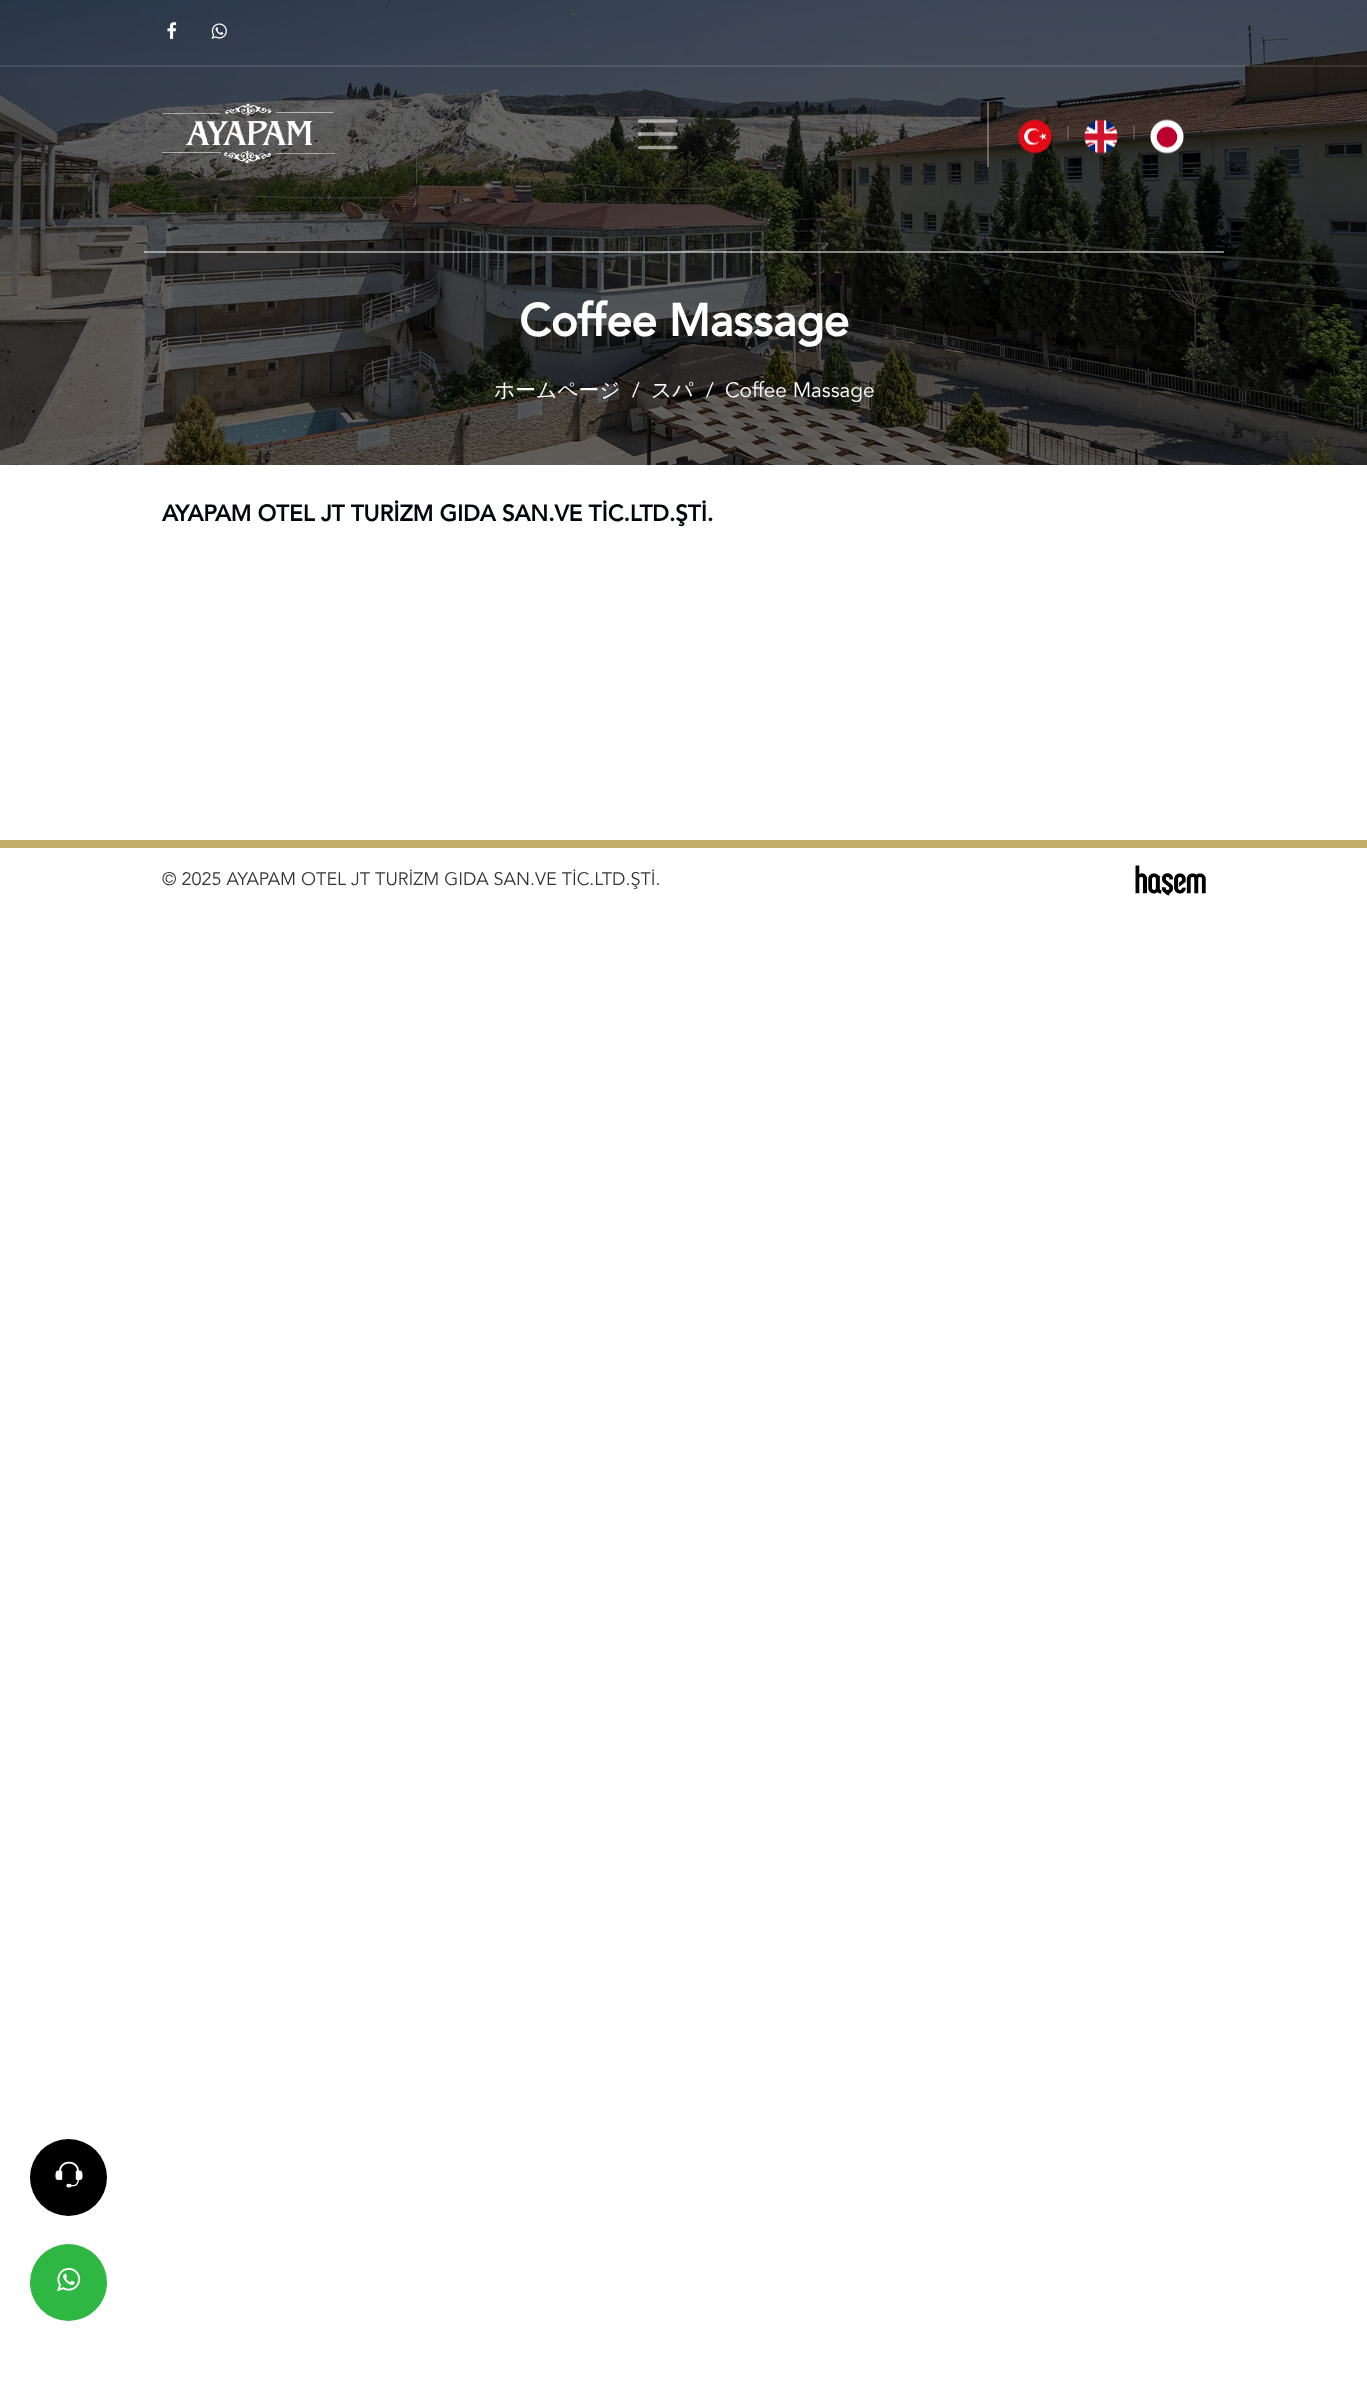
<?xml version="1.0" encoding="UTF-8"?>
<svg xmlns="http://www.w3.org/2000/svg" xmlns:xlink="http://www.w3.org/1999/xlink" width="1367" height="2395">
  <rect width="100%" height="100%" fill="#ffffff" />
  <image x="0" y="0" width="1367" height="465" xlink:href="image7.png" />
  <rect y="65" width="1367" height="2" fill="#ffffff" fill-opacity="0.11" />
  <image x="167" y="22" width="10" height="17" xlink:href="image1.png" />
  <image x="211" y="23" width="16" height="16" xlink:href="image2.png" />
  <image x="162" y="103" width="173" height="60" xlink:href="image3.png" />
  <path d="M 639.5 121 h 36.5 m -36.5 13 h 36.5 m -36.5 13.5 h 36.5" fill="none" stroke="#ffffff" stroke-opacity="0.55" stroke-width="3.3" stroke-linecap="round" />
  <rect x="987" y="102" width="2" height="65" fill="#ffffff" fill-opacity="0.31" />
  <image x="1018" y="119" width="34" height="35" xlink:href="image4.png" />
  <rect x="1067" y="126" width="2" height="14" fill="#ffffff" fill-opacity="0.17" />
  <image x="1084" y="119" width="34" height="35" xlink:href="image5.png" />
  <rect x="1133" y="126" width="2" height="14" fill="#ffffff" fill-opacity="0.17" />
  <image x="1150" y="119" width="34" height="35" xlink:href="image6.png" />
  <rect x="144" y="251" width="1080" height="2" fill="#ffffff" fill-opacity="0.5" />
  <rect y="840" width="1367" height="8" fill="#c2ad6a" />
  <image x="1135" y="865" width="71" height="31" xlink:href="image8.png" />
  <circle cx="68.5" cy="2177.5" r="38.5" fill="#000000" />
  <image x="55" y="2161" width="28" height="27" xlink:href="image9.png" />
  <circle cx="68.5" cy="2282.5" r="38.5" fill="#2eb843" />
  <image x="57" y="2267" width="24" height="25" xlink:href="image10.png" />
  <text x="519" y="336" style="font-family: Avenir; font-size: 45px; font-weight: bold; fill: #ffffff">Coffee Massage</text>
  <text x="494" y="397" style="font-family: WenQuanYi Zen Hei; font-size: 20.75px; font-weight: 500; fill: #ffffff">ホームページ</text>
  <text x="632" y="397" style="font-family: Avenir; font-size: 20.75px; fill: #ffffff">/</text>
  <text x="651" y="397" style="font-family: WenQuanYi Zen Hei; font-size: 20.75px; font-weight: 500; fill: #ffffff">スパ</text>
  <text x="706" y="397" style="font-family: Avenir; font-size: 20.75px; fill: #ffffff">/</text>
  <text x="725" y="397" style="font-family: Avenir; font-size: 20.75px; fill: #ffffff">Coffee Massage</text>
  <text x="162" y="521" style="font-family: Avenir; font-size: 22.5px; font-weight: bold; fill: #00050b">AYAPAM OTEL JT TURİZM GIDA SAN.VE TİC.LTD.ŞTİ.</text>
  <text x="162" y="885" style="font-family: Avenir; font-size: 18px; fill: #333333">© 2025 AYAPAM OTEL JT TURİZM GIDA SAN.VE TİC.LTD.ŞTİ.</text>
</svg>
